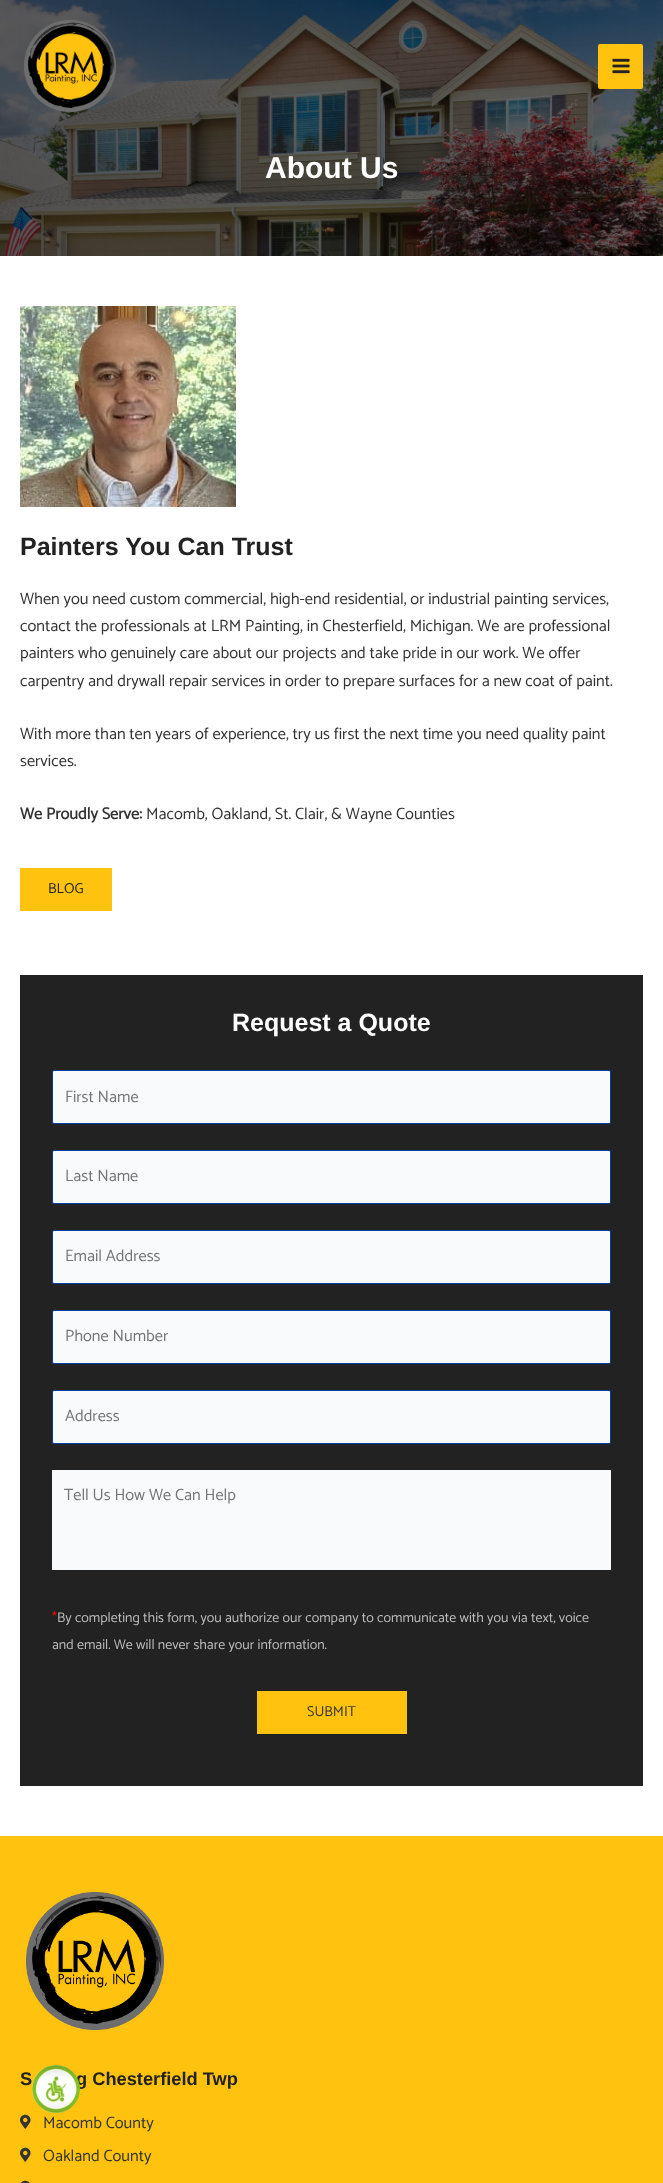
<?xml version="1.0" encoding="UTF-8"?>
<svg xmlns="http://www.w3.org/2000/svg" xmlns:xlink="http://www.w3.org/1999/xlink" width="663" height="2183">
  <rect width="100%" height="100%" fill="#ffffff" />
  <image x="0" y="0" width="663" height="256" xlink:href="image3.png" />
  <image x="23" y="20" width="94" height="93" xlink:href="image1.png" />
  <rect x="598" y="44" width="45" height="45" rx="2" fill="#ffc20f" />
  <image x="612" y="58" width="18" height="16" xlink:href="image2.png" />
  <image x="20" y="306" width="216" height="201" xlink:href="image4.png" />
  <rect x="20" y="868" width="92" height="43" fill="#ffc20f" />
  <rect x="20" y="975" width="623" height="811" fill="#222222" />
  <rect x="52.5" y="1070.5" width="558" height="53" rx="1.5" fill="#f9fafb" stroke="#063da2" />
  <rect x="52.5" y="1150.5" width="558" height="53" rx="1.5" fill="#f9fafb" stroke="#063da2" />
  <rect x="52.5" y="1230.5" width="558" height="53" rx="1.5" fill="#f9fafb" stroke="#063da2" />
  <rect x="52.5" y="1310.5" width="558" height="53" rx="1.5" fill="#f9fafb" stroke="#063da2" />
  <rect x="52.5" y="1390.5" width="558" height="53" rx="1.5" fill="#f9fafb" stroke="#063da2" />
  <rect x="52" y="1470" width="559" height="100" fill="#f9fafb" />
  <rect x="257" y="1691" width="150" height="43" fill="#ffc20f" />
  <rect y="1836" width="663" height="347" fill="#ffc20f" />
  <image x="25" y="1891" width="140" height="140" xlink:href="image5.png" />
  <image x="20" y="2114" width="11" height="15" xlink:href="image6.png" />
  <image x="20" y="2147" width="11" height="15" xlink:href="image6.png" />
  <image x="21" y="2180" width="9" height="3" xlink:href="image7.png" />
  <text x="265" y="178" style="font-family: Liberation Sans; font-size: 30px; font-weight: bold; fill: #ffffff">About Us</text>
  <text x="20" y="555" style="font-family: Liberation Sans; font-size: 25px; font-weight: bold; fill: #222222">Painters You Can Trust</text>
  <text x="20" y="604" style="font-family: Catamaran; font-size: 16.4px; font-weight: 100; fill: #333333">When you need custom commercial, high-end residential, or industrial painting services,</text>
  <text x="20" y="631" style="font-family: Catamaran; font-size: 16.4px; font-weight: 100; fill: #333333">contact the professionals at LRM Painting, in Chesterfield, Michigan. We are professional</text>
  <text x="20" y="658" style="font-family: Catamaran; font-size: 16.4px; font-weight: 100; fill: #333333">painters who genuinely care about our projects and take pride in our work. We offer</text>
  <text x="20" y="686" style="font-family: Catamaran; font-size: 16.4px; font-weight: 100; fill: #333333">carpentry and drywall repair services in order to prepare surfaces for a new coat of paint.</text>
  <text x="20" y="739" style="font-family: Catamaran; font-size: 16.4px; font-weight: 100; fill: #333333">With more than ten years of experience, try us first the next time you need quality paint</text>
  <text x="20" y="766" style="font-family: Catamaran; font-size: 16.4px; font-weight: 100; fill: #333333">services.</text>
  <text x="20" y="819" style="font-family: Catamaran; font-size: 16.4px; font-weight: bold; fill: #333333">We Proudly Serve:</text>
  <text x="146" y="819" style="font-family: Catamaran; font-size: 16.4px; font-weight: 100; fill: #333333">Macomb, Oakland, St. Clair, &amp; Wayne Counties</text>
  <text x="48" y="893" style="font-family: Catamaran; font-size: 14.5px; font-weight: 100; fill: #222222">BLOG</text>
  <text x="232" y="1031" style="font-family: Liberation Sans; font-size: 25px; font-weight: bold; fill: #ffffff">Request a Quote</text>
  <text x="65" y="1102" style="font-family: Catamaran; font-size: 16.4px; font-weight: 100; fill: #757575">First Name</text>
  <text x="65" y="1181" style="font-family: Catamaran; font-size: 16.4px; font-weight: 100; fill: #757575">Last Name</text>
  <text x="65" y="1261" style="font-family: Catamaran; font-size: 16.4px; font-weight: 100; fill: #757575">Email Address</text>
  <text x="65" y="1341" style="font-family: Catamaran; font-size: 16.4px; font-weight: 100; fill: #757575">Phone Number</text>
  <text x="65" y="1421" style="font-family: Catamaran; font-size: 16.4px; font-weight: 100; fill: #757575">Address</text>
  <text x="64" y="1500" style="font-family: Catamaran; font-size: 16.4px; font-weight: 100; fill: #757575">Tell Us How We Can Help</text>
  <text x="52" y="1622" style="font-family: Catamaran; font-size: 14px; font-weight: 100; fill: #ff0000">*</text>
  <text x="57" y="1622" style="font-family: Catamaran; font-size: 14px; font-weight: 100; fill: #bbbbbb">By completing this form, you authorize our company to communicate with you via text, voice</text>
  <text x="52" y="1649" style="font-family: Catamaran; font-size: 14px; font-weight: 100; fill: #bbbbbb">and email. We will never share your information.</text>
  <text x="307" y="1716" style="font-family: Catamaran; font-size: 14.5px; font-weight: 100; fill: #333333">SUBMIT</text>
  <text x="20" y="2085" style="font-family: Liberation Sans; font-size: 18.25px; font-weight: bold; fill: #222222">S</text>
  <text x="76" y="2085" style="font-family: Liberation Sans; font-size: 18.25px; font-weight: bold; fill: #222222">g Chesterfield Twp</text>
  <text x="43" y="2128" style="font-family: Catamaran; font-size: 16.4px; font-weight: 100; fill: #333333">Macomb County</text>
  <text x="43" y="2161" style="font-family: Catamaran; font-size: 16.4px; font-weight: 100; fill: #333333">Oakland County</text>
  <image x="32" y="2065" width="48" height="48" xlink:href="image8.png" />
</svg>
